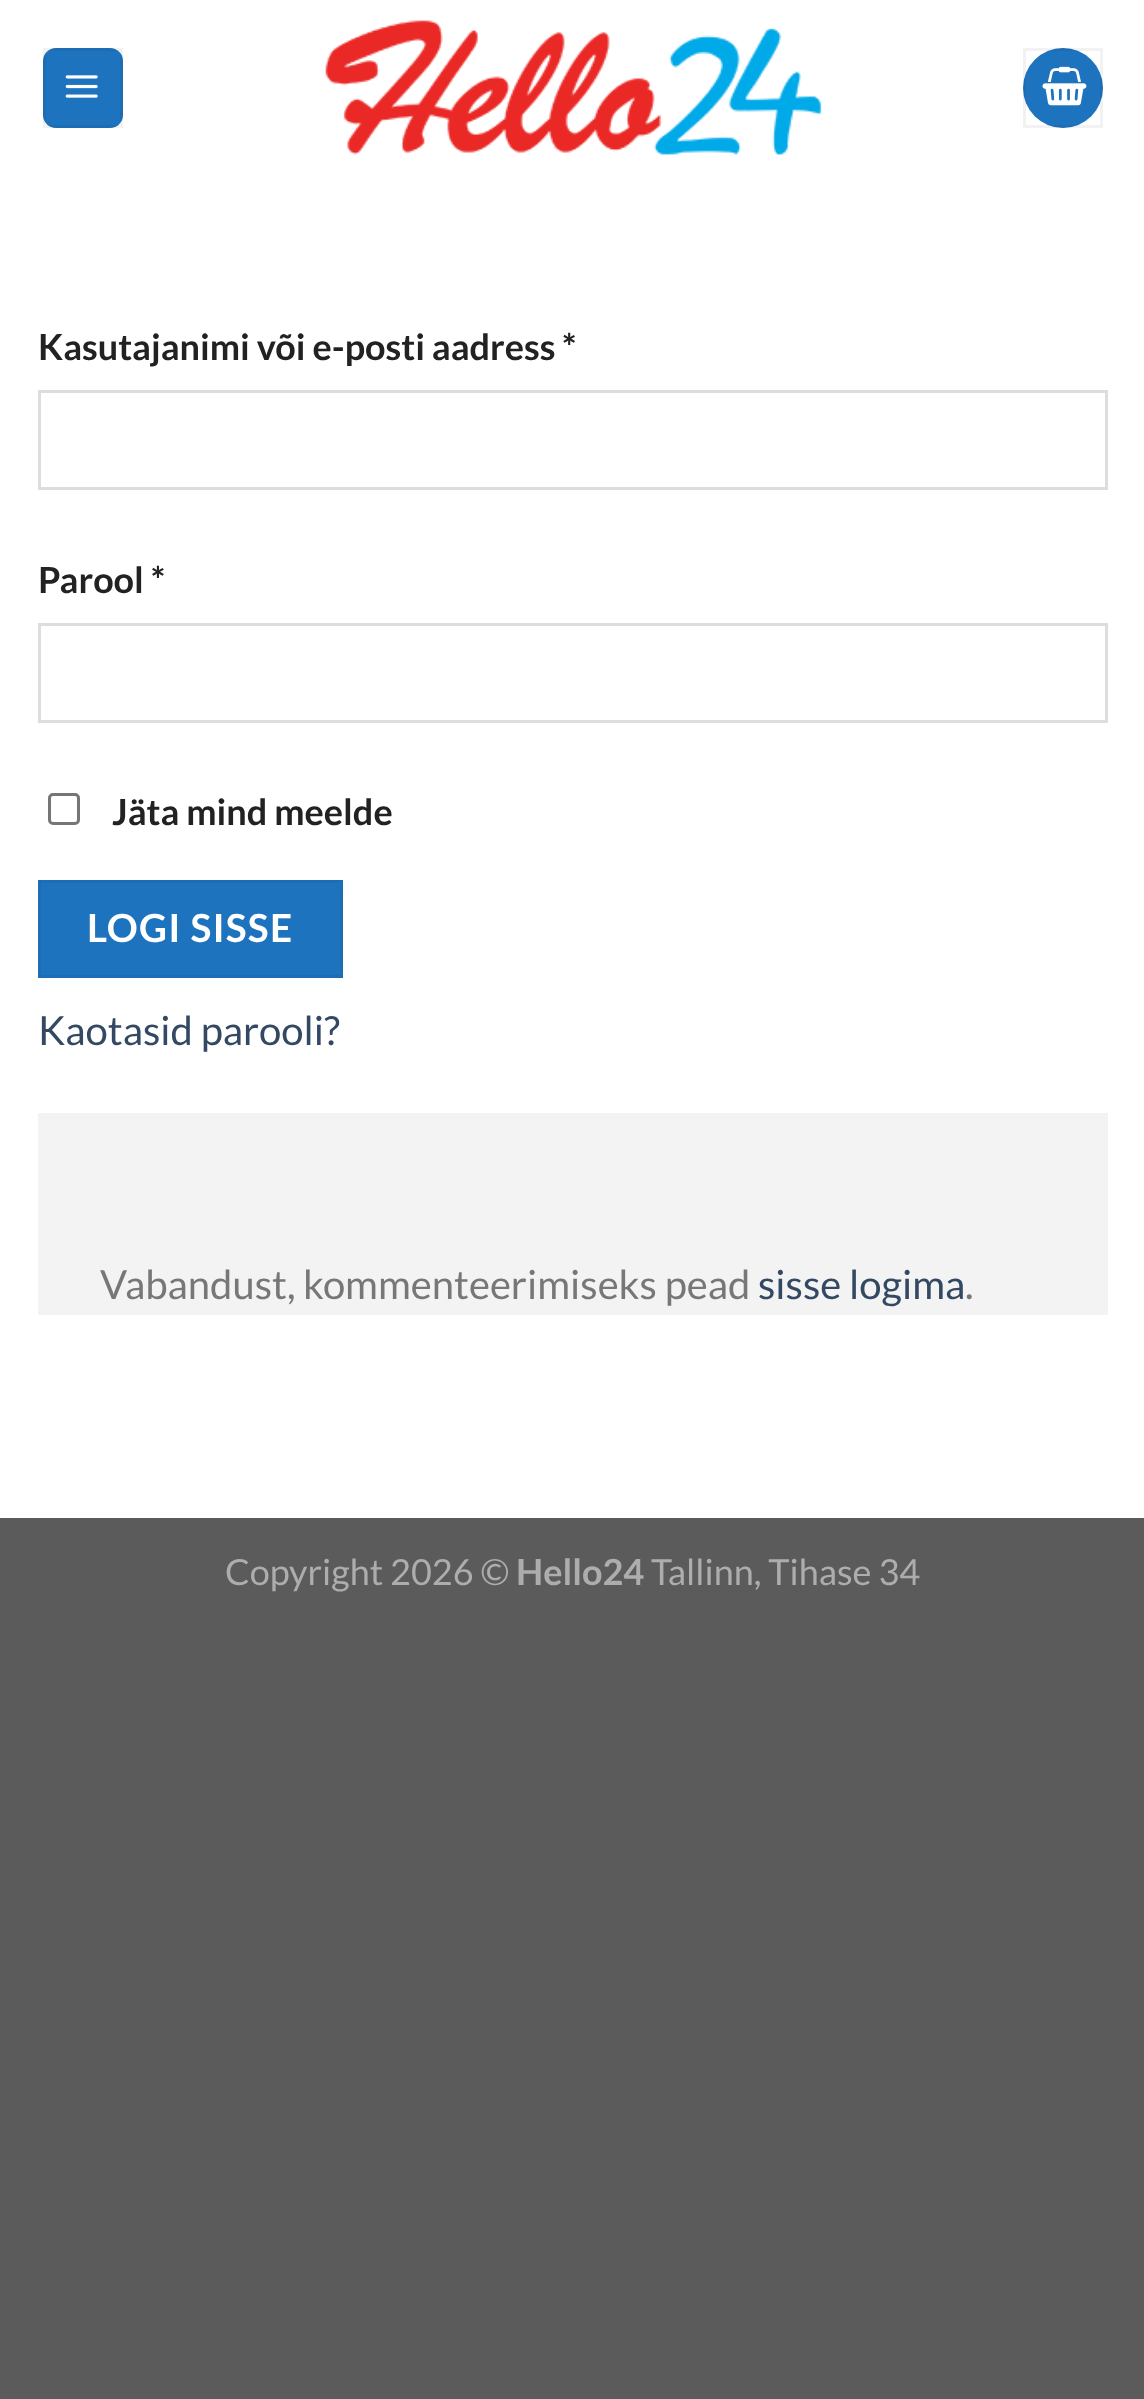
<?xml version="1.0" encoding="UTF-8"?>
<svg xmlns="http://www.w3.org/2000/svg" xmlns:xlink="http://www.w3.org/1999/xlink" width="1144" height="2399">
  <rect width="100%" height="100%" fill="#5b5b5b" />
  <rect width="1144" height="1518" fill="#ffffff" />
  <rect x="43" y="48" width="80" height="80" rx="13" fill="#1e73be" />
  <rect x="44.5" y="49.5" width="77" height="77" fill="none" stroke="#000000" stroke-opacity="0.05" stroke-width="3" />
  <image x="65" y="75" width="33" height="23" xlink:href="image1.png" />
  <image x="325" y="20" width="497" height="135" xlink:href="image2.png" />
  <circle cx="1063" cy="88" r="40" fill="#1e73be" />
  <rect x="1024.5" y="49.5" width="77" height="77" fill="none" stroke="#000000" stroke-opacity="0.05" stroke-width="3" />
  <image x="1042" y="66" width="45" height="40" xlink:href="image3.png" />
  <rect x="39.5" y="391.5" width="1067" height="97" fill="none" stroke="#dddddd" stroke-width="3" />
  <rect x="39.5" y="624.5" width="1067" height="97" fill="none" stroke="#dddddd" stroke-width="3" />
  <rect x="49.5" y="794.5" width="29" height="29" rx="3.5" fill="none" stroke="#767676" stroke-width="3" />
  <rect x="39.5" y="881.5" width="302" height="95" fill="#1e73be" stroke="#1d6db5" stroke-width="3" />
  <rect x="38" y="1113" width="1070" height="202" fill="#f3f3f3" />
  <text x="38" y="360" style="font-family: Lato; font-size: 36px; font-weight: bold; fill: #222222">Kasutajanimi või e-posti aadress</text>
  <text x="562" y="360" style="font-family: Lato; font-size: 36px; font-weight: bold; fill: #222222">*</text>
  <text x="38" y="593" style="font-family: Lato; font-size: 36px; font-weight: bold; fill: #222222">Parool *</text>
  <text x="112" y="825" style="font-family: Lato; font-size: 36px; font-weight: bold; fill: #222222">Jäta mind meelde</text>
  <text x="87" y="942" style="font-family: Lato; font-size: 38.75px; font-weight: bold; letter-spacing: 1.25px; fill: #ffffff">LOGI SISSE</text>
  <text x="38" y="1045" style="font-family: Lato; font-size: 40px; fill: #334862">Kaotasid parooli?</text>
  <text x="100" y="1299" style="font-family: Lato; font-size: 40px; fill: #777777">Vabandust, kommenteerimiseks pead</text>
  <text x="758" y="1299" style="font-family: Lato; font-size: 40px; fill: #334862">sisse logima</text>
  <text x="965" y="1299" style="font-family: Lato; font-size: 40px; fill: #777777">.</text>
  <text x="225" y="1585" style="font-family: Lato; font-size: 36px; fill: #adadad">Copyright 2026 ©</text>
  <text x="516" y="1585" style="font-family: Lato; font-size: 36px; font-weight: bold; fill: #adadad">Hello24</text>
  <text x="651" y="1585" style="font-family: Lato; font-size: 36px; fill: #adadad">Tallinn, Tihase 34</text>
</svg>
